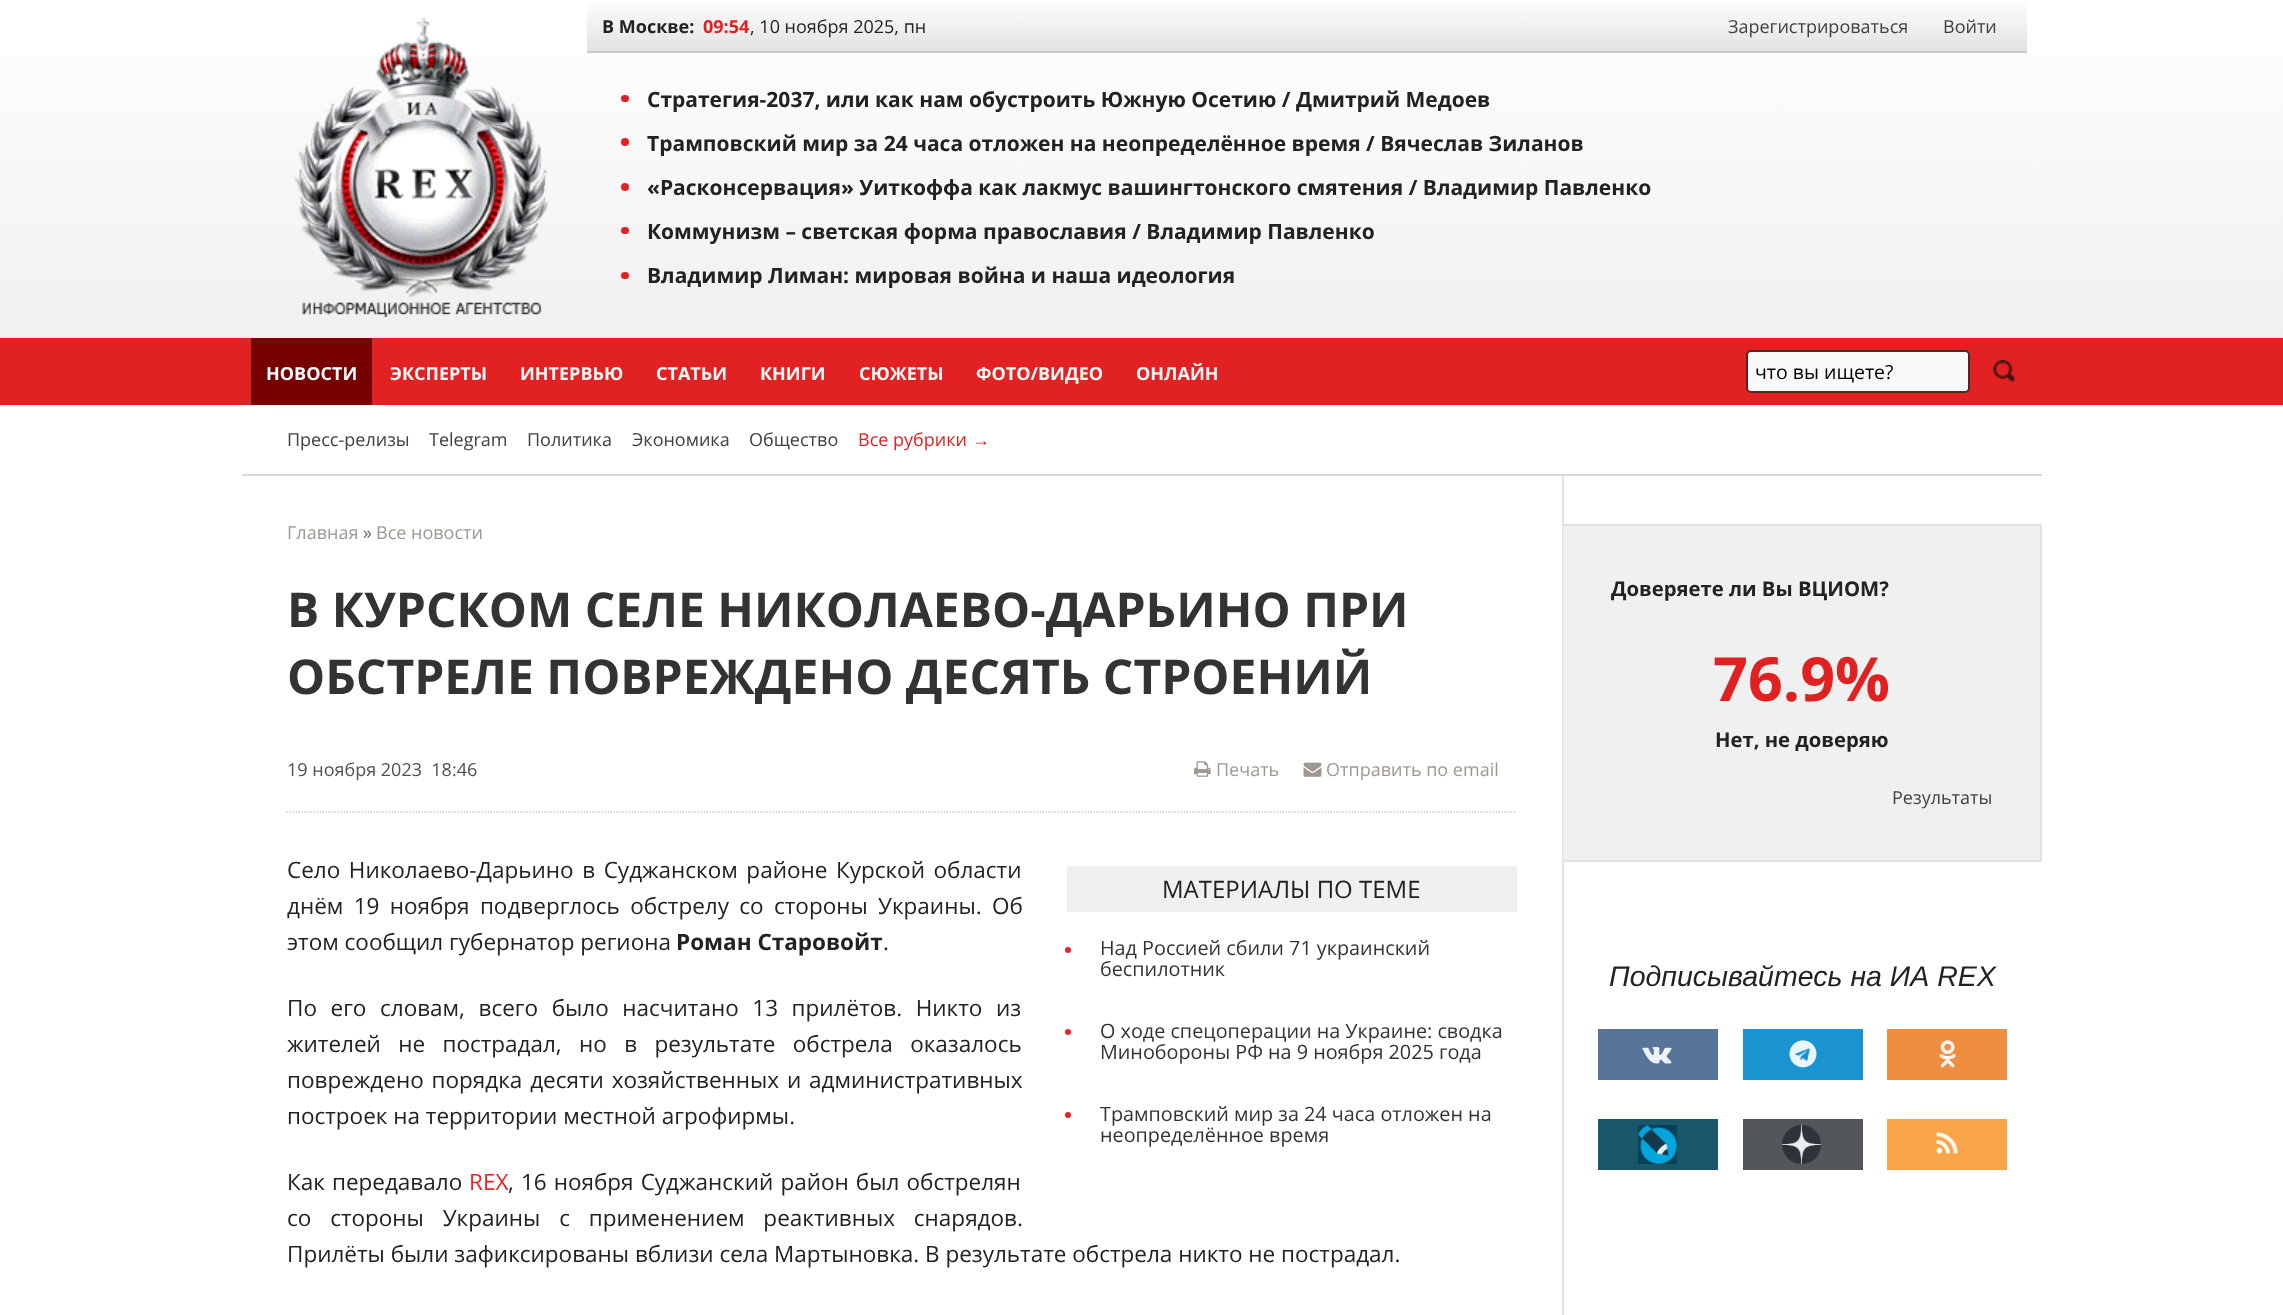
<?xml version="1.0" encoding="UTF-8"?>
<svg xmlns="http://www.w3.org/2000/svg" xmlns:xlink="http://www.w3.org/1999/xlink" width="2283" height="1315">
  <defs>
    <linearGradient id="g1" gradientUnits="userSpaceOnUse" x1="1142" y1="0" x2="1142" y2="338"><stop offset="0" stop-color="#ffffff" /><stop offset="1" stop-color="#f0f0f0" /></linearGradient>
    <linearGradient id="g2" gradientUnits="userSpaceOnUse" x1="1307" y1="0" x2="1307" y2="51"><stop offset="0" stop-color="#fefefe" /><stop offset="1" stop-color="#e2e2e2" /></linearGradient>
  </defs>
  <rect width="100%" height="100%" fill="#ffffff" />
  <rect y="56" width="2283" height="282" fill="url(#g1)" />
  <image x="293" y="17" width="256" height="301" xlink:href="image1.png" />
  <rect x="587" y="3" width="1440" height="48" fill="url(#g2)" />
  <rect x="587" y="51" width="1440" height="2" fill="#cacaca" />
  <rect x="621" y="95" width="8" height="7" rx="3.5" fill="#e22222" />
  <circle cx="625" cy="142" r="4" fill="#e22222" />
  <circle cx="625" cy="187" r="4" fill="#e22222" />
  <rect x="621" y="227" width="8" height="7" rx="3.5" fill="#e22222" />
  <rect x="621" y="272" width="8" height="7" rx="3.5" fill="#e22222" />
  <rect y="338" width="2283" height="67" fill="#e22222" />
  <rect x="251" y="338" width="121" height="67" fill="#760000" />
  <rect x="1747" y="351" width="222" height="41" rx="4" fill="#f9f9f9" stroke="#592323" stroke-width="2" />
  <image x="1992" y="360" width="24" height="23" xlink:href="image2.png" />
  <rect x="242" y="474" width="1800" height="2" fill="#dadada" />
  <path d="M 286.5 812 h 1230" fill="none" stroke="#cccccc" stroke-width="1.5" stroke-dasharray="1.5 1.5" />
  <image x="1194" y="761" width="17" height="16" xlink:href="image3.png" />
  <image x="1303" y="762" width="19" height="15" xlink:href="image4.png" />
  <rect x="1067" y="866" width="450" height="46" fill="#f0f0f0" />
  <circle cx="1068" cy="950" r="3" fill="#ee2222" />
  <circle cx="1068" cy="1032" r="3" fill="#ee2222" />
  <circle cx="1068" cy="1115" r="3" fill="#ee2222" />
  <rect x="1562" y="476" width="2" height="839" fill="#e2e2e2" />
  <rect x="1563" y="526" width="477" height="334" fill="#f0f0f0" />
  <rect x="1563" y="524" width="479" height="2" fill="#e2e2e2" />
  <rect x="2040" y="524" width="2" height="337" fill="#e2e2e2" />
  <rect x="1563" y="860" width="479" height="2" fill="#e2e2e2" />
  <rect x="1598" y="1029" width="120" height="51" fill="#587599" />
  <image x="1642" y="1047" width="30" height="17" xlink:href="image5.png" />
  <rect x="1743" y="1029" width="120" height="51" fill="#1a94d1" />
  <image x="1789" y="1040" width="28" height="28" xlink:href="image6.png" />
  <rect x="1887" y="1029" width="120" height="51" fill="#ef8e40" />
  <image x="1939" y="1040" width="17" height="28" xlink:href="image7.png" />
  <rect x="1598" y="1119" width="120" height="51" fill="#1a566a" />
  <image x="1638" y="1125" width="39" height="39" xlink:href="image8.png" />
  <rect x="1743" y="1119" width="120" height="51" fill="#53575b" />
  <image x="1782" y="1125" width="39" height="39" xlink:href="image9.png" />
  <rect x="1887" y="1119" width="120" height="51" fill="#f9a449" />
  <image x="1936" y="1132" width="22" height="22" xlink:href="image10.png" />
  <text x="602" y="33" style="font-family: Open Sans; font-size: 18px; font-weight: bold; fill: #222222">В Москве:</text>
  <text x="703" y="33" style="font-family: Open Sans; font-size: 18px; font-weight: bold; fill: #e02121">09:54</text>
  <text x="750" y="33" style="font-family: Open Sans; font-size: 18px; fill: #222222">, 10 ноября 2025, пн</text>
  <text x="1728" y="33" style="font-family: Open Sans; font-size: 18px; fill: #404040">Зарегистрироваться</text>
  <text x="1943" y="33" style="font-family: Open Sans; font-size: 18px; fill: #404040">Войти</text>
  <text x="647" y="107" style="font-family: Open Sans; font-size: 21px; font-weight: bold; fill: #222222">Стратегия-2037, или как нам обустроить Южную Осетию / Дмитрий Медоев</text>
  <text x="647" y="151" style="font-family: Open Sans; font-size: 21px; font-weight: bold; fill: #222222">Трамповский мир за 24 часа отложен на неопределённое время / Вячеслав Зиланов</text>
  <text x="647" y="195" style="font-family: Open Sans; font-size: 21px; font-weight: bold; fill: #222222">«Расконсервация» Уиткоффа как лакмус вашингтонского смятения / Владимир Павленко</text>
  <text x="647" y="239" style="font-family: Open Sans; font-size: 21px; font-weight: bold; fill: #222222">Коммунизм – светская форма православия / Владимир Павленко</text>
  <text x="647" y="283" style="font-family: Open Sans; font-size: 21px; font-weight: bold; fill: #222222">Владимир Лиман: мировая война и наша идеология</text>
  <text x="266" y="380" style="font-family: Open Sans; font-size: 18px; font-weight: bold; fill: #ffffff">НОВОСТИ</text>
  <text x="390" y="380" style="font-family: Open Sans; font-size: 18px; font-weight: bold; fill: #f8f8f8">ЭКСПЕРТЫ</text>
  <text x="520" y="380" style="font-family: Open Sans; font-size: 18px; font-weight: bold; fill: #f8f8f8">ИНТЕРВЬЮ</text>
  <text x="656" y="380" style="font-family: Open Sans; font-size: 18px; font-weight: bold; fill: #f8f8f8">СТАТЬИ</text>
  <text x="760" y="380" style="font-family: Open Sans; font-size: 18px; font-weight: bold; fill: #f8f8f8">КНИГИ</text>
  <text x="859" y="380" style="font-family: Open Sans; font-size: 18px; font-weight: bold; fill: #f8f8f8">СЮЖЕТЫ</text>
  <text x="976" y="380" style="font-family: Open Sans; font-size: 18px; font-weight: bold; fill: #f8f8f8">ФОТО/ВИДЕО</text>
  <text x="1136" y="380" style="font-family: Open Sans; font-size: 18px; font-weight: bold; fill: #f8f8f8">ОНЛАЙН</text>
  <text x="1755" y="379" style="font-family: Open Sans; font-size: 19.5px; fill: #000000">что вы ищете?</text>
  <text x="287" y="446" style="font-family: Open Sans; font-size: 18px; fill: #404040">Пресс-релизы</text>
  <text x="429" y="446" style="font-family: Open Sans; font-size: 18px; fill: #404040">Telegram</text>
  <text x="527" y="446" style="font-family: Open Sans; font-size: 18px; fill: #404040">Политика</text>
  <text x="632" y="446" style="font-family: Open Sans; font-size: 18px; fill: #404040">Экономика</text>
  <text x="749" y="446" style="font-family: Open Sans; font-size: 18px; fill: #404040">Общество</text>
  <text x="858" y="446" style="font-family: Open Sans; font-size: 18px; fill: #e02121">Все рубрики</text>
  <text x="972" y="446" style="font-family: Liberation Sans; font-size: 18px; fill: #e02121">→</text>
  <text x="287" y="539" style="font-family: Open Sans; font-size: 18px; fill: #9f9891">Главная</text>
  <text x="363" y="539" style="font-family: Open Sans; font-size: 18px; fill: #666666">»</text>
  <text x="376" y="539" style="font-family: Open Sans; font-size: 18px; fill: #9f9891">Все новости</text>
  <text x="287" y="627" style="font-family: Open Sans; font-size: 48px; font-weight: bold; fill: #333333">В КУРСКОМ СЕЛЕ НИКОЛАЕВО-ДАРЬИНО ПРИ</text>
  <text x="287" y="694" style="font-family: Open Sans; font-size: 48px; font-weight: bold; fill: #333333">ОБСТРЕЛЕ ПОВРЕЖДЕНО ДЕСЯТЬ СТРОЕНИЙ</text>
  <text x="287" y="776" style="font-family: Open Sans; font-size: 18px; fill: #515151" xml:space="preserve">19 ноября 2023  18:46</text>
  <text x="1216" y="776" style="font-family: Open Sans; font-size: 18px; fill: #9f9891">Печать</text>
  <text x="1326" y="776" style="font-family: Open Sans; font-size: 18px; fill: #9f9891">Отправить по email</text>
  <text x="287" y="878" word-spacing="2.75" style="font-family: Open Sans; font-size: 22.5px; fill: #222222">Село Николаево-Дарьино в Суджанском районе Курской области</text>
  <text x="287" y="914" word-spacing="4.5" style="font-family: Open Sans; font-size: 22.5px; fill: #222222">днём 19 ноября подверглось обстрелу со стороны Украины. Об</text>
  <text x="287" y="950" style="font-family: Open Sans; font-size: 22.5px; fill: #222222">этом сообщил губернатор региона</text>
  <text x="676" y="950" style="font-family: Open Sans; font-size: 22.5px; font-weight: bold; fill: #222222">Роман Старовойт</text>
  <text x="883" y="950" style="font-family: Open Sans; font-size: 22.5px; fill: #222222">.</text>
  <text x="287" y="1016" word-spacing="7.75" style="font-family: Open Sans; font-size: 22.5px; fill: #222222">По его словам, всего было насчитано 13 прилётов. Никто из</text>
  <text x="287" y="1052" word-spacing="11.5" style="font-family: Open Sans; font-size: 22.5px; fill: #222222">жителей не пострадал, но в результате обстрела оказалось</text>
  <text x="287" y="1088" word-spacing="2" style="font-family: Open Sans; font-size: 22.5px; fill: #222222">повреждено порядка десяти хозяйственных и административных</text>
  <text x="287" y="1124" style="font-family: Open Sans; font-size: 22.5px; fill: #222222">построек на территории местной агрофирмы.</text>
  <text x="287" y="1190" word-spacing="1.25" style="font-family: Open Sans; font-size: 22.5px; fill: #222222">Как передавало</text>
  <text x="469" y="1190" style="font-family: Open Sans; font-size: 22.5px; fill: #ee2222">REX</text>
  <text x="508" y="1190" word-spacing="1.25" style="font-family: Open Sans; font-size: 22.5px; fill: #222222">, 16 ноября Суджанский район был обстрелян</text>
  <text x="287" y="1226" word-spacing="13" style="font-family: Open Sans; font-size: 22.5px; fill: #222222">со стороны Украины с применением реактивных снарядов.</text>
  <text x="287" y="1262" style="font-family: Open Sans; font-size: 22.5px; fill: #222222">Прилёты были зафиксированы вблизи села Мартыновка. В результате обстрела никто не пострадал.</text>
  <text x="1162" y="898" style="font-family: Open Sans; font-size: 24px; fill: #222222">МАТЕРИАЛЫ ПО ТЕМЕ</text>
  <text x="1100" y="955" style="font-family: Open Sans; font-size: 19.8px; fill: #333333">Над Россией сбили 71 украинский</text>
  <text x="1100" y="976" style="font-family: Open Sans; font-size: 19.8px; fill: #333333">беспилотник</text>
  <text x="1100" y="1038" style="font-family: Open Sans; font-size: 19.8px; fill: #333333">О ходе спецоперации на Украине: сводка</text>
  <text x="1100" y="1059" style="font-family: Open Sans; font-size: 19.8px; fill: #333333">Минобороны РФ на 9 ноября 2025 года</text>
  <text x="1100" y="1121" style="font-family: Open Sans; font-size: 19.8px; fill: #333333">Трамповский мир за 24 часа отложен на</text>
  <text x="1100" y="1142" style="font-family: Open Sans; font-size: 19.8px; fill: #333333">неопределённое время</text>
  <text x="1611" y="596" style="font-family: Open Sans; font-size: 20.25px; font-weight: bold; fill: #222222">Доверяете ли Вы ВЦИОМ?</text>
  <text x="1713" y="701" style="font-family: Open Sans; font-size: 61px; font-weight: bold; fill: #e02121">76.9%</text>
  <text x="1715" y="747" style="font-family: Open Sans; font-size: 20.25px; font-weight: bold; fill: #222222">Нет, не доверяю</text>
  <text x="1892" y="804" style="font-family: Open Sans; font-size: 18px; fill: #404040">Результаты</text>
  <text x="1609" y="986" style="font-family: Liberation Sans; font-size: 28.5px; font-style: italic; fill: #222222">Подписывайтесь на ИА REX</text>
</svg>
